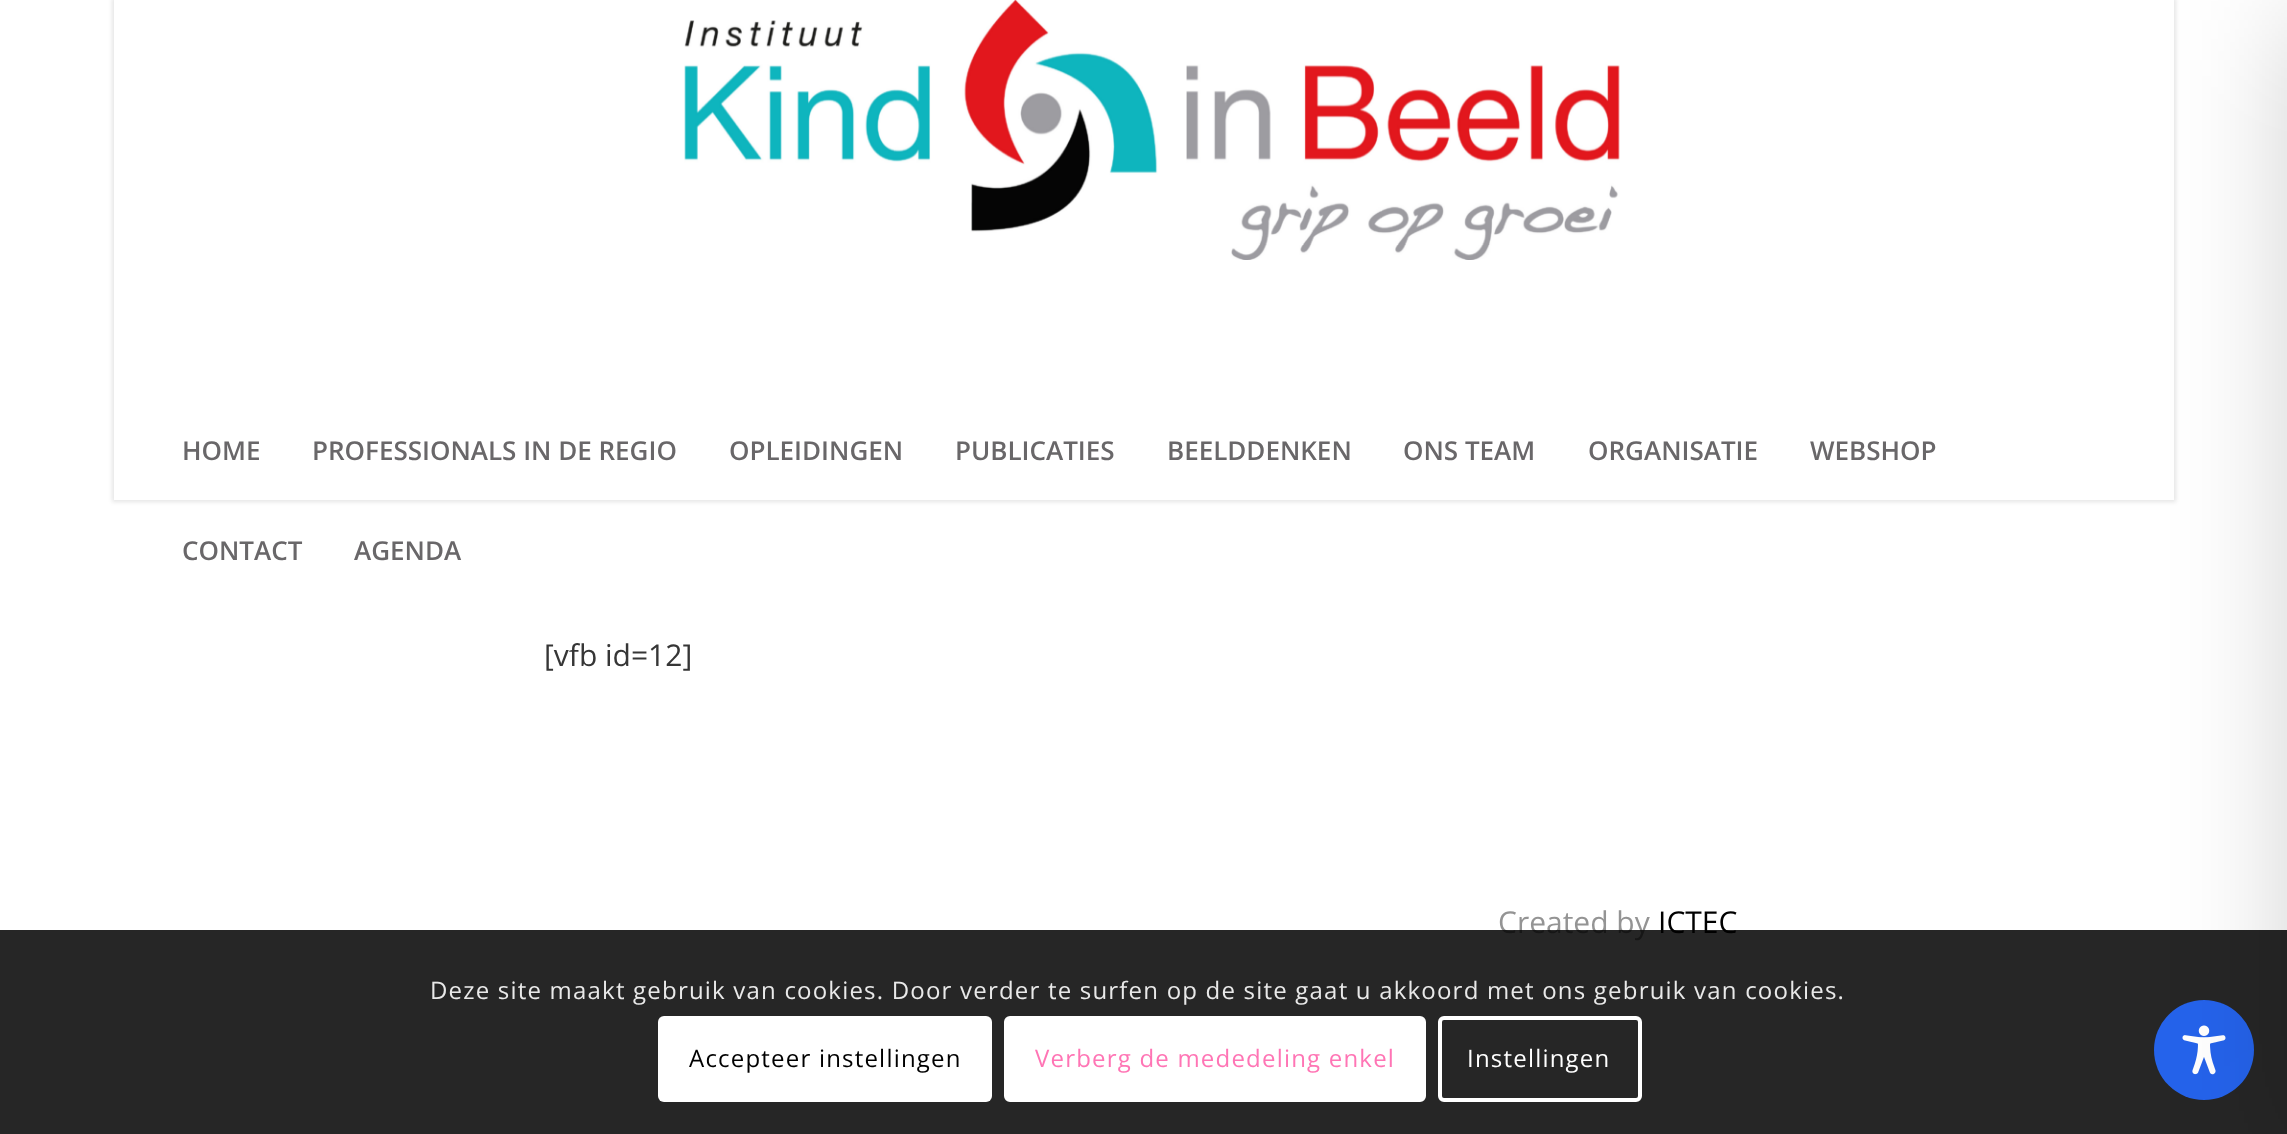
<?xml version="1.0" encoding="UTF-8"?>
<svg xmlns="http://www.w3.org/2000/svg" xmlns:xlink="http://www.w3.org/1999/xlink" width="2287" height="1134">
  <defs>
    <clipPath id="clip1"><path d="M 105 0 h 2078 v 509 h -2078 z m 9 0 h 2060 v 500 h -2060 z" clip-rule="evenodd" /></clipPath>
  </defs>
  <rect width="100%" height="100%" fill="#ffffff" />
  <g clip-path="url(#clip1)">
    <rect x="112" y="-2" width="2064" height="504" fill="#000000" fill-opacity="0.1" filter="blur(2px)" />
  </g>
  <image x="684" y="0" width="936" height="260" xlink:href="image1.png" />
  <text x="182" y="460" style="font-family: Open Sans; font-size: 26px; font-weight: 600; fill: #696769">HOME</text>
  <text x="312" y="460" style="font-family: Open Sans; font-size: 26px; font-weight: 600; fill: #696769">PROFESSIONALS IN DE REGIO</text>
  <text x="729" y="460" style="font-family: Open Sans; font-size: 26px; font-weight: 600; fill: #696769">OPLEIDINGEN</text>
  <text x="955" y="460" style="font-family: Open Sans; font-size: 26px; font-weight: 600; fill: #696769">PUBLICATIES</text>
  <text x="1167" y="460" style="font-family: Open Sans; font-size: 26px; font-weight: 600; fill: #696769">BEELDDENKEN</text>
  <text x="1403" y="460" style="font-family: Open Sans; font-size: 26px; font-weight: 600; fill: #696769">ONS TEAM</text>
  <text x="1588" y="460" style="font-family: Open Sans; font-size: 26px; font-weight: 600; fill: #696769">ORGANISATIE</text>
  <text x="1810" y="460" style="font-family: Open Sans; font-size: 26px; font-weight: 600; fill: #696769">WEBSHOP</text>
  <text x="182" y="560" style="font-family: Open Sans; font-size: 26px; font-weight: 600; fill: #696769">CONTACT</text>
  <text x="354" y="560" style="font-family: Open Sans; font-size: 26px; font-weight: 600; fill: #696769">AGENDA</text>
  <text x="544" y="666" style="font-family: Open Sans; font-size: 30px; fill: #363636">[vfb id=12]</text>
  <text x="1498" y="933" style="font-family: Open Sans; font-size: 30px; fill: #949494">Created by</text>
  <text x="1658" y="933" style="font-family: Open Sans; font-size: 30px; fill: #000000">ICTEC</text>
  <rect y="930" width="2287" height="204" fill="#000000" fill-opacity="0.85" />
  <text x="430" y="999" style="font-family: Open Sans; font-size: 24px; letter-spacing: 1.2px; fill: #e9e9e9">Deze site maakt gebruik van cookies. Door verder te surfen op de site gaat u akkoord met ons gebruik van cookies.</text>
  <rect x="658" y="1016" width="334" height="86" rx="6" fill="#ffffff" />
  <text x="689" y="1067" style="font-family: Open Sans; font-size: 24px; letter-spacing: 1.2px; fill: #000000">Accepteer instellingen</text>
  <rect x="1006" y="1018" width="418" height="82" rx="4" fill="#ffffff" stroke="#ffffff" stroke-width="4" />
  <text x="1035" y="1067" style="font-family: Open Sans; font-size: 24px; letter-spacing: 1.2px; fill: #ff75b5">Verberg de mededeling enkel</text>
  <rect x="1440" y="1018" width="200" height="82" rx="4" fill="none" stroke="#ffffff" stroke-width="4" />
  <text x="1467" y="1067" style="font-family: Open Sans; font-size: 24px; letter-spacing: 1.2px; fill: #ffffff">Instellingen</text>
  <circle cx="2204" cy="1050" r="50" fill="#2563eb" />
  <image x="2182" y="1025" width="44" height="50" xlink:href="image2.png" />
  <rect x="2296" y="20" width="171" height="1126" fill="#000000" fill-opacity="0.2" filter="blur(60px)" />
</svg>
